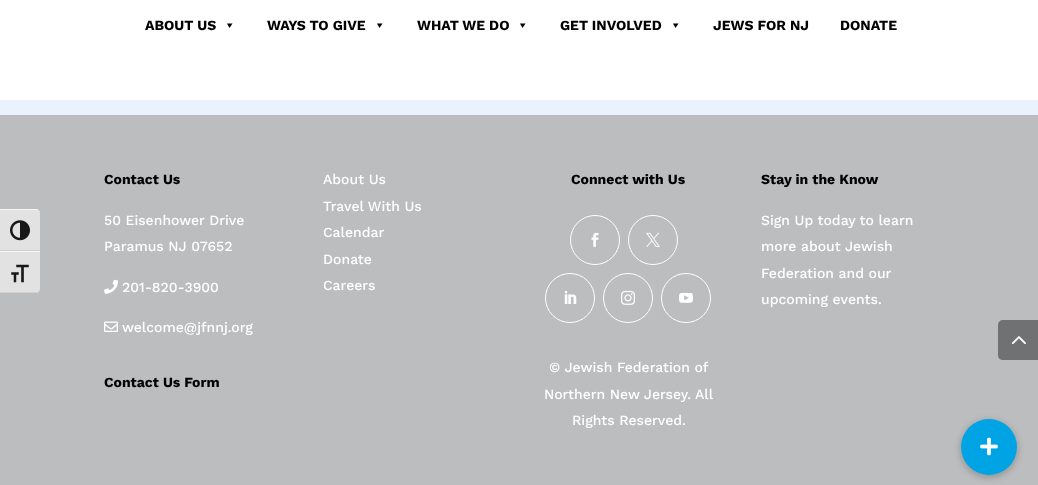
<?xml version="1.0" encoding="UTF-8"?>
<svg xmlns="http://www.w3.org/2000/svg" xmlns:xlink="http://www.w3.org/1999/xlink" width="1038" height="485">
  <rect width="100%" height="100%" fill="#ebf2ff" />
  <rect y="115" width="1038" height="370" fill="#bbbdbf" />
  <path d="M 0 209 h 36 c 2 0 4 2 4 4 v 38 h -40 z" fill="#e2e2e2" />
  <path d="M 0 209 v 1 h 36 c 2 0 4 1 4 3 c 0 -2 -2 -4 -4 -4 z" fill="#f5f5f5" />
  <rect y="250" width="40" height="1" fill="#d2d2d2" />
  <image x="10" y="220" width="20" height="21" xlink:href="image1.png" />
  <path d="M 0 251 h 40 v 38 c 0 2 -2 4 -4 4 h -36 z" fill="#e2e2e2" />
  <rect y="251" width="40" height="1" fill="#f5f5f5" />
  <path d="M 0 292 v 1 h 36 c 2 0 4 -2 4 -4 c 0 2 -2 3 -4 3 z" fill="#d2d2d2" />
  <image x="11" y="264" width="18" height="19" xlink:href="image2.png" />
  <rect width="1038" height="100" fill="#ffffff" />
  <path d="M 232.5 23.5 l -3 4.5 l -2.5 -4.5 z" fill="#000000" />
  <path d="M 382.5 23.5 l -3 4.5 l -2.5 -4.5 z" fill="#000000" />
  <path d="M 525.5 23.5 l -3 4.5 l -2.5 -4.5 z" fill="#000000" />
  <path d="M 678.5 23.5 l -3 4.5 l -2.5 -4.5 z" fill="#000000" />
  <image x="104" y="279" width="14" height="15" xlink:href="image3.png" />
  <image x="104" y="321" width="14" height="11" xlink:href="image4.png" />
  <circle cx="595" cy="240" r="24.5" fill="none" stroke="#ffffff" />
  <image x="591" y="232" width="8" height="15" xlink:href="image5.png" />
  <circle cx="653" cy="240" r="24.5" fill="none" stroke="#ffffff" />
  <image x="646" y="232" width="14" height="15" xlink:href="image6.png" />
  <circle cx="570" cy="298" r="24.5" fill="none" stroke="#ffffff" />
  <image x="564" y="291" width="13" height="13" xlink:href="image7.png" />
  <circle cx="628" cy="298" r="24.5" fill="none" stroke="#ffffff" />
  <image x="621" y="290" width="14" height="15" xlink:href="image8.png" />
  <circle cx="686" cy="298" r="24.5" fill="none" stroke="#ffffff" />
  <image x="679" y="292" width="14" height="11" xlink:href="image9.png" />
  <path d="M 1003 320 h 35 v 40 h -35 c -3 0 -5 -2 -5 -5 v -30 c 0 -3 2 -5 5 -5 z" fill="#707173" />
  <image x="1011" y="336" width="15" height="8" xlink:href="image10.png" />
  <rect x="960" y="420" width="58" height="58" rx="29" fill="#000000" fill-opacity="0.2" filter="blur(3px)" />
  <circle cx="989" cy="447" r="28" fill="#00a4e4" />
  <image x="980" y="437" width="18" height="19" xlink:href="image11.png" />
  <text x="145" y="30" style="font-family: Work Sans; font-size: 14px; font-weight: bold; fill: #000000">ABOUT US</text>
  <text x="267" y="30" style="font-family: Work Sans; font-size: 14px; font-weight: bold; fill: #000000">WAYS TO GIVE</text>
  <text x="417" y="30" style="font-family: Work Sans; font-size: 14px; font-weight: bold; fill: #000000">WHAT WE DO</text>
  <text x="560" y="30" style="font-family: Work Sans; font-size: 14px; font-weight: bold; fill: #000000">GET INVOLVED</text>
  <text x="713" y="30" style="font-family: Work Sans; font-size: 14px; font-weight: bold; fill: #000000">JEWS FOR NJ</text>
  <text x="840" y="30" style="font-family: Work Sans; font-size: 14px; font-weight: bold; fill: #000000">DONATE</text>
  <text x="104" y="184" style="font-family: Work Sans; font-size: 14px; font-weight: bold; fill: #000000">Contact Us</text>
  <text x="104" y="225" style="font-family: Work Sans; font-size: 14px; font-weight: 500; fill: #ffffff">50 Eisenhower Drive</text>
  <text x="104" y="251" style="font-family: Work Sans; font-size: 14px; font-weight: 500; fill: #ffffff">Paramus NJ 07652</text>
  <text x="122" y="292" style="font-family: Work Sans; font-size: 14px; font-weight: 500; fill: #ffffff">201-820-3900</text>
  <text x="122" y="332" style="font-family: Work Sans; font-size: 14px; font-weight: 500; fill: #ffffff">welcome@jfnnj.org</text>
  <text x="104" y="387" style="font-family: Work Sans; font-size: 14px; font-weight: bold; fill: #000000">Contact Us Form</text>
  <text x="323" y="184" style="font-family: Work Sans; font-size: 14px; font-weight: 500; fill: #ffffff">About Us</text>
  <text x="323" y="211" style="font-family: Work Sans; font-size: 14px; font-weight: 500; fill: #ffffff">Travel With Us</text>
  <text x="323" y="237" style="font-family: Work Sans; font-size: 14px; font-weight: 500; fill: #ffffff">Calendar</text>
  <text x="323" y="264" style="font-family: Work Sans; font-size: 14px; font-weight: 500; fill: #ffffff">Donate</text>
  <text x="323" y="290" style="font-family: Work Sans; font-size: 14px; font-weight: 500; fill: #ffffff">Careers</text>
  <text x="571" y="184" style="font-family: Work Sans; font-size: 14px; font-weight: bold; fill: #000000">Connect with Us</text>
  <text x="549" y="372" style="font-family: Work Sans; font-size: 14px; font-weight: 500; fill: #ffffff">© Jewish Federation of</text>
  <text x="544" y="399" style="font-family: Work Sans; font-size: 14px; font-weight: 500; fill: #ffffff">Northern New Jersey. All</text>
  <text x="572" y="425" style="font-family: Work Sans; font-size: 14px; font-weight: 500; fill: #ffffff">Rights Reserved.</text>
  <text x="761" y="184" style="font-family: Work Sans; font-size: 14px; font-weight: bold; fill: #000000">Stay in the Know</text>
  <text x="761" y="225" style="font-family: Work Sans; font-size: 14px; font-weight: 500; fill: #ffffff">Sign Up today to learn</text>
  <text x="761" y="251" style="font-family: Work Sans; font-size: 14px; font-weight: 500; fill: #ffffff">more about Jewish</text>
  <text x="761" y="278" style="font-family: Work Sans; font-size: 14px; font-weight: 500; fill: #ffffff">Federation and our</text>
  <text x="761" y="304" style="font-family: Work Sans; font-size: 14px; font-weight: 500; fill: #ffffff">upcoming events.</text>
</svg>
